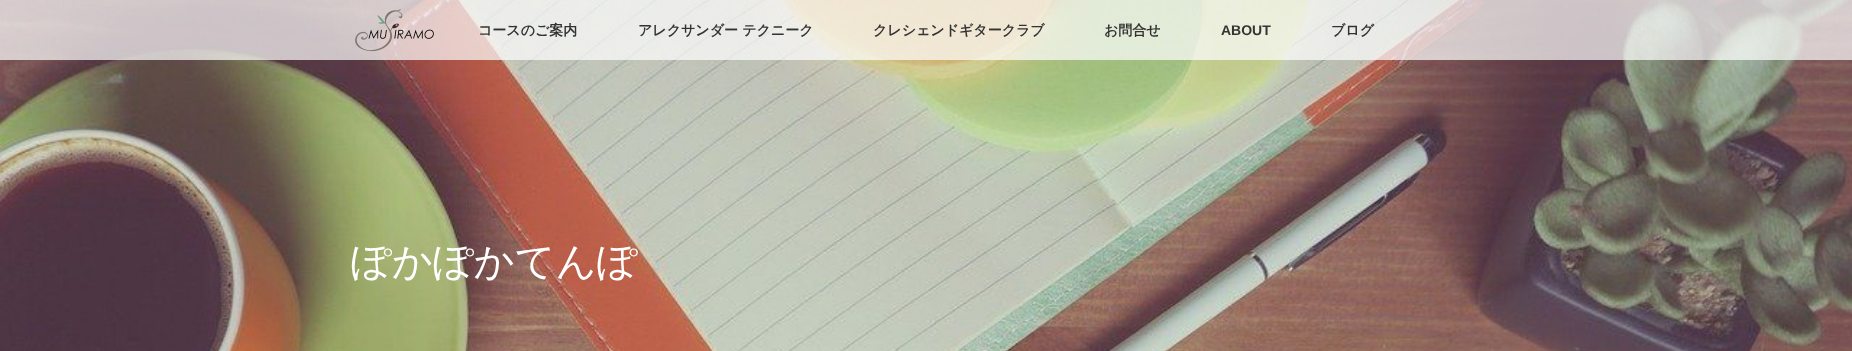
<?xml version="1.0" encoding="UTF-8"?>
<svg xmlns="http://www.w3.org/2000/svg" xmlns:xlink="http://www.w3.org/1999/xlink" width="1852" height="351">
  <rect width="100%" height="100%" fill="#ffffff" />
  <image x="0" y="0" width="1852" height="351" xlink:href="image2.png" />
  <rect width="1852" height="60" fill="#ffffff" fill-opacity="0.7" />
  <image x="355" y="9" width="79" height="43" xlink:href="image1.png" />
  <text x="478" y="35" style="font-family: WenQuanYi Zen Hei; font-size: 14px; font-weight: bold; fill: #333333">コースのご案内</text>
  <text x="638" y="35" style="font-family: WenQuanYi Zen Hei; font-size: 14px; font-weight: bold; fill: #333333">アレクサンダー テクニーク</text>
  <text x="873" y="35" style="font-family: WenQuanYi Zen Hei; font-size: 14px; font-weight: bold; fill: #333333">クレシェンドギタークラブ</text>
  <text x="1104" y="35" style="font-family: WenQuanYi Zen Hei; font-size: 14px; font-weight: bold; fill: #333333">お問合せ</text>
  <text x="1221" y="35" style="font-family: Liberation Sans; font-size: 14px; font-weight: bold; fill: #333333">ABOUT</text>
  <text x="1331" y="35" style="font-family: WenQuanYi Zen Hei; font-size: 14px; font-weight: bold; fill: #333333">ブログ</text>
  <text x="351" y="275" style="font-family: WenQuanYi Zen Hei; font-size: 40px; font-weight: 500; fill: #ffffff">ぽかぽかてんぽ</text>
</svg>
